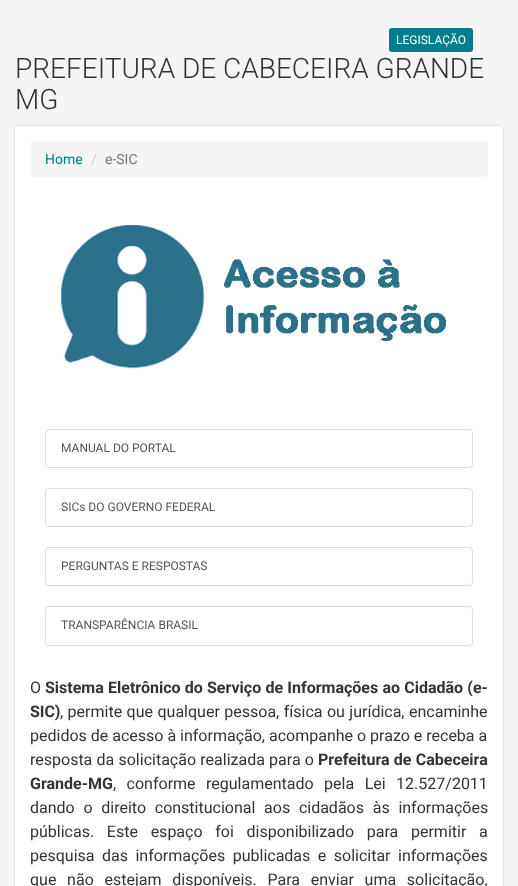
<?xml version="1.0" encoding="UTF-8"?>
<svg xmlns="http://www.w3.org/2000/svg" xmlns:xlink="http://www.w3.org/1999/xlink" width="518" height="886">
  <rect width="100%" height="100%" fill="#f5f5f5" />
  <rect x="390" y="29" width="82" height="22" rx="2" fill="#027d8e" stroke="#027d8e" stroke-width="2" />
  <rect x="14.5" y="125.5" width="489" height="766" rx="4.5" fill="none" stroke="#e3e3e3" />
  <rect x="15" y="126" width="488" height="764" rx="4" fill="#ffffff" />
  <rect x="30" y="141" width="458" height="36" rx="4" fill="#f5f5f5" />
  <image x="61" y="225" width="385" height="144" xlink:href="image1.png" />
  <rect x="45.5" y="429.5" width="427" height="38" rx="3.5" fill="none" stroke="#dddddd" />
  <rect x="45.5" y="488.5" width="427" height="38" rx="3.5" fill="none" stroke="#dddddd" />
  <rect x="45.5" y="547.5" width="427" height="38" rx="3.5" fill="none" stroke="#dddddd" />
  <rect x="45.5" y="606.5" width="427" height="39" rx="3.5" fill="none" stroke="#dddddd" />
  <text x="396" y="44" style="font-family: Roboto; font-size: 12px; fill: #ffffff">LEGISLAÇÃO</text>
  <text x="15" y="78" style="font-family: Roboto; font-size: 28px; font-weight: 300; fill: #333333">PREFEITURA DE CABECEIRA GRANDE</text>
  <text x="15" y="109" style="font-family: Roboto; font-size: 28px; font-weight: 300; fill: #333333">MG</text>
  <text x="45" y="164" style="font-family: Roboto; font-size: 14px; fill: #027d8e">Home</text>
  <text x="91" y="164" style="font-family: Roboto; font-size: 14px; fill: #cccccc">/</text>
  <text x="105" y="164" style="font-family: Roboto; font-size: 14px; fill: #777777">e-SIC</text>
  <text x="61" y="452" style="font-family: Roboto; font-size: 12px; fill: #555555">MANUAL DO PORTAL</text>
  <text x="61" y="511" style="font-family: Roboto; font-size: 12px; fill: #555555">SICs DO GOVERNO FEDERAL</text>
  <text x="61" y="570" style="font-family: Roboto; font-size: 12px; fill: #555555">PERGUNTAS E RESPOSTAS</text>
  <text x="61" y="629" style="font-family: Roboto; font-size: 12px; fill: #555555">TRANSPARÊNCIA BRASIL</text>
  <text x="30" y="693" style="font-family: Roboto; font-size: 16px; fill: #333333">O</text>
  <text x="45" y="693" word-spacing="0.25" style="font-family: Roboto; font-size: 16px; font-weight: bold; fill: #333333">Sistema Eletrônico do Serviço de Informações ao Cidadão (e-</text>
  <text x="30" y="717" style="font-family: Roboto; font-size: 16px; font-weight: bold; fill: #333333">SIC)</text>
  <text x="60" y="717" word-spacing="0.5" style="font-family: Roboto; font-size: 16px; fill: #333333">, permite que qualquer pessoa, física ou jurídica, encaminhe</text>
  <text x="30" y="741" style="font-family: Roboto; font-size: 16px; fill: #333333">pedidos de acesso à informação, acompanhe o prazo e receba a</text>
  <text x="30" y="765" word-spacing="0.25" style="font-family: Roboto; font-size: 16px; fill: #333333">resposta da solicitação realizada para o</text>
  <text x="318" y="765" word-spacing="0.25" style="font-family: Roboto; font-size: 16px; font-weight: bold; fill: #333333">Prefeitura de Cabeceira</text>
  <text x="30" y="789" style="font-family: Roboto; font-size: 16px; font-weight: bold; fill: #333333">Grande-MG</text>
  <text x="113" y="789" word-spacing="6.5" style="font-family: Roboto; font-size: 16px; fill: #333333">, conforme regulamentado pela Lei 12.527/2011</text>
  <text x="30" y="813" word-spacing="4.75" style="font-family: Roboto; font-size: 16px; fill: #333333">dando o direito constitucional aos cidadãos às informações</text>
  <text x="30" y="837" word-spacing="8.75" style="font-family: Roboto; font-size: 16px; fill: #333333">públicas. Este espaço foi disponibilizado para permitir a</text>
  <text x="30" y="861" word-spacing="3.5" style="font-family: Roboto; font-size: 16px; fill: #333333">pesquisa das informações publicadas e solicitar informações</text>
  <text x="30" y="885" word-spacing="6.75" style="font-family: Roboto; font-size: 16px; fill: #333333">que não estejam disponíveis. Para enviar uma solicitação,</text>
</svg>
